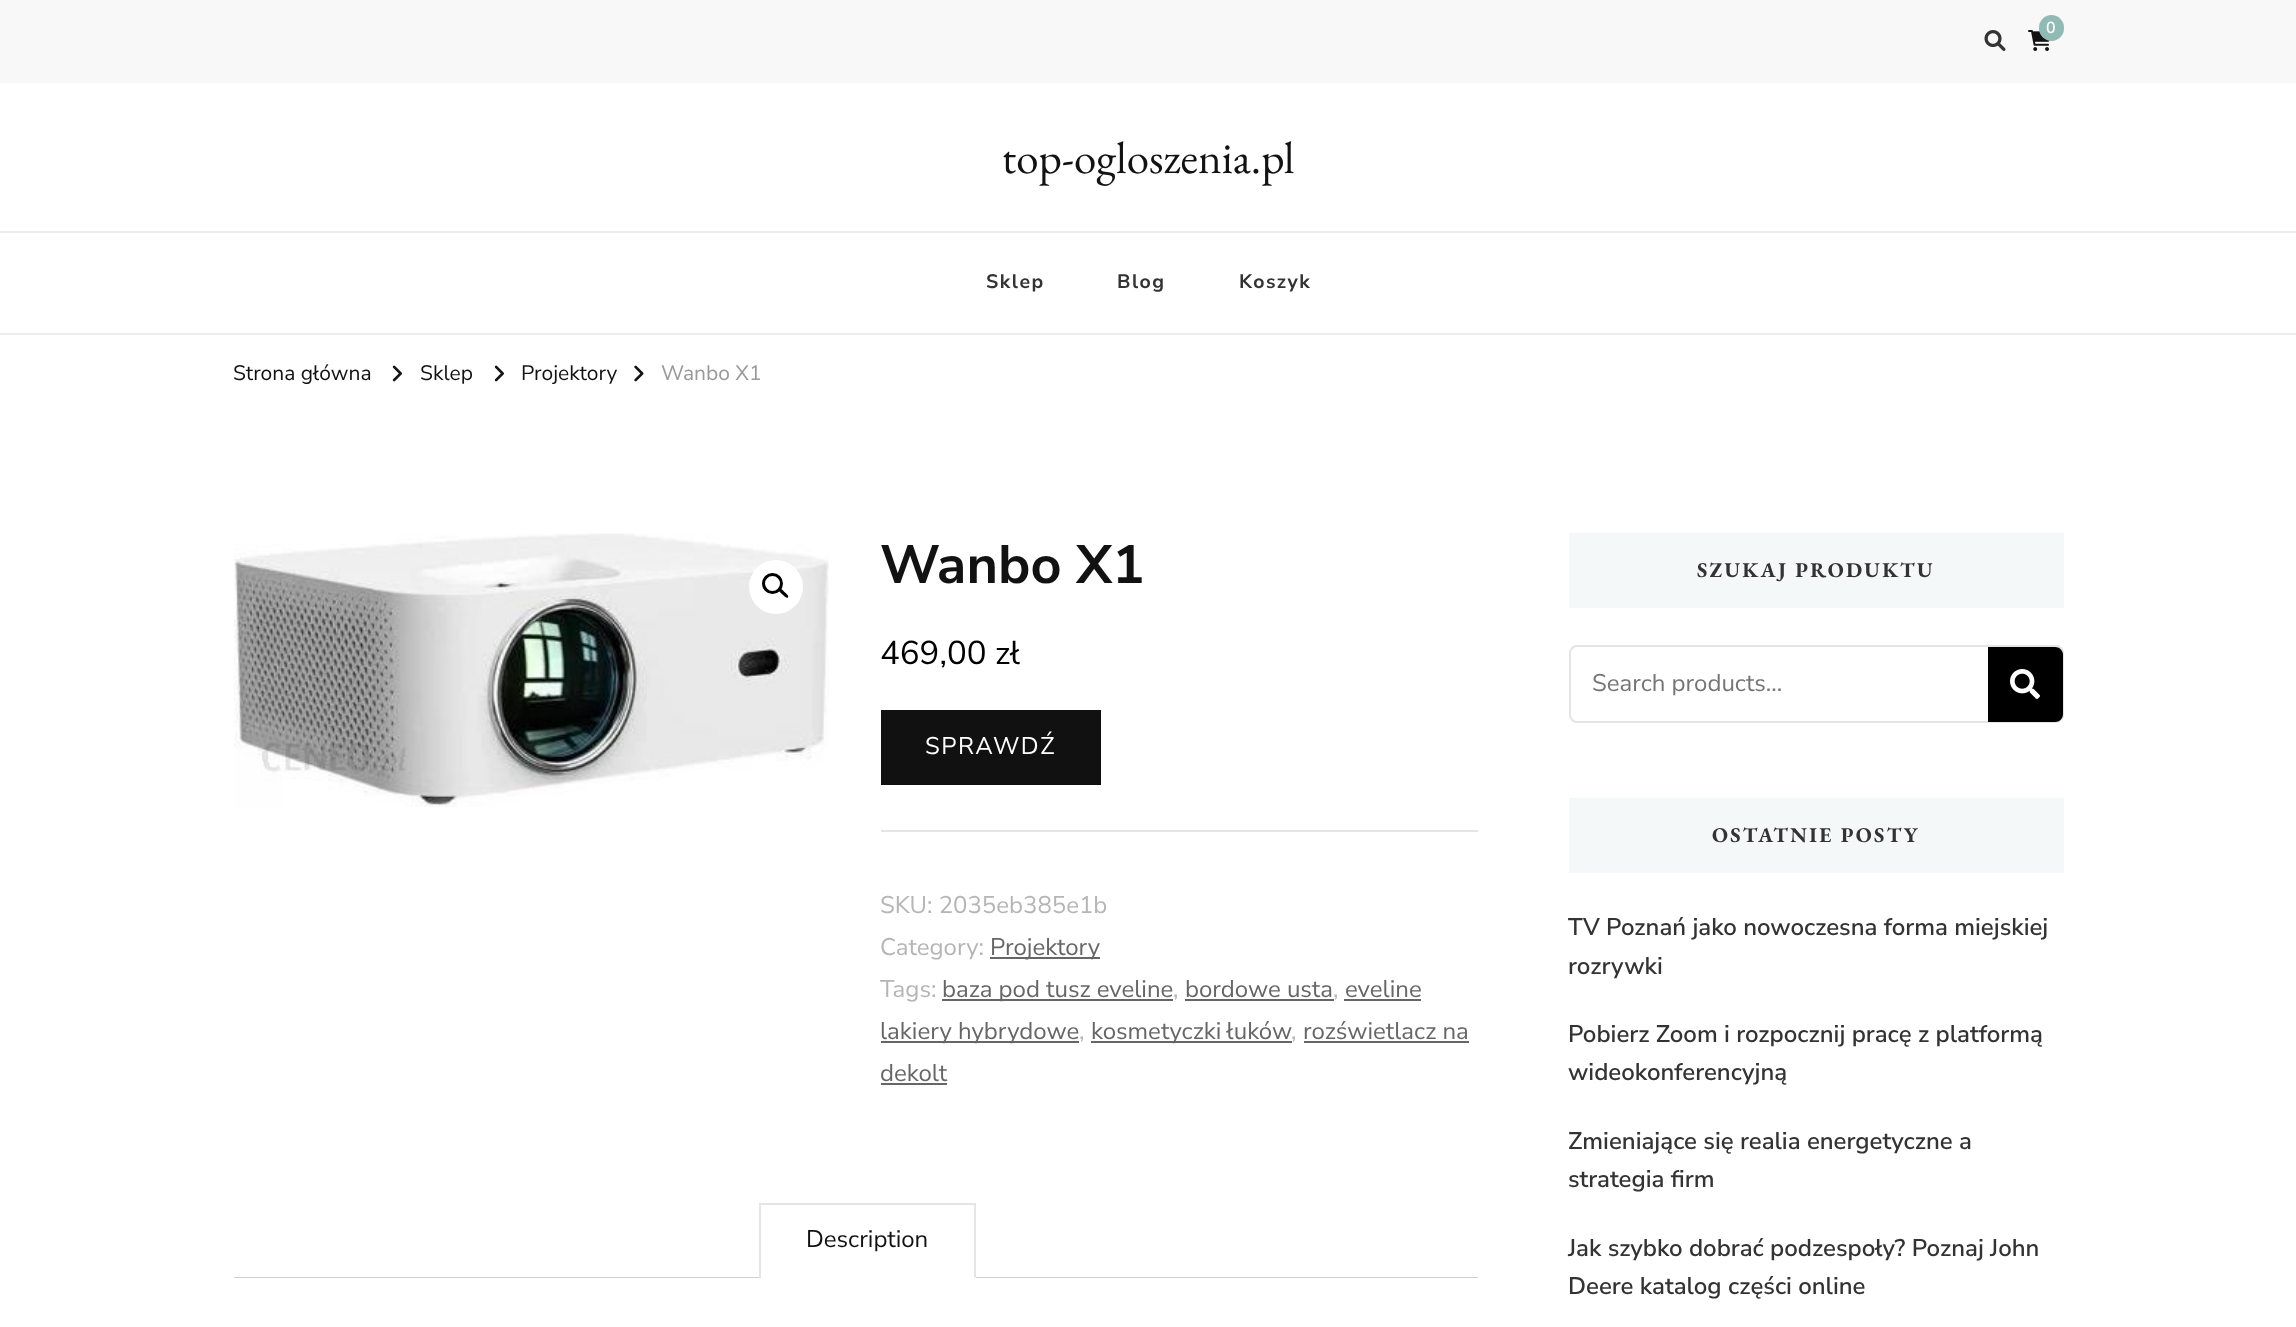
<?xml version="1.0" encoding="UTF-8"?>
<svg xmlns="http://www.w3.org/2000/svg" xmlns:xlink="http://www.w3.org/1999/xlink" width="2296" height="1327">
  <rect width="100%" height="100%" fill="#ffffff" />
  <rect width="2296" height="83" fill="#f8f8f8" />
  <image x="2028" y="30" width="22" height="21" xlink:href="image1.png" />
  <rect x="2039" y="15" width="25" height="26" rx="12.5" fill="#90bab5" />
  <image x="1984" y="30" width="22" height="21" xlink:href="image2.png" />
  <rect y="231" width="2296" height="2" fill="#ededed" />
  <rect y="333" width="2296" height="2" fill="#ededed" />
  <image x="392" y="365" width="10" height="17" xlink:href="image3.png" />
  <image x="494" y="365" width="10" height="17" xlink:href="image3.png" />
  <image x="634" y="365" width="10" height="17" xlink:href="image4.png" />
  <image x="234" y="533" width="595" height="274" xlink:href="image5.png" />
  <circle cx="776" cy="587" r="27" fill="#ffffff" />
  <circle cx="772.5" cy="583.5" r="9" fill="none" stroke="#000000" stroke-width="3" />
  <path d="M 779.5 589 c 1.5 -1.5 4.5 2.5 5 3 c 1 1 5 4 3.5 5.5 c -2 1.5 -4.5 -2.5 -5.5 -3 c -1 -1 -5 -4 -3 -5.5 z" fill="#000000" />
  <rect x="881" y="830" width="597" height="2" fill="#e5e5e5" />
  <rect x="881" y="710" width="220" height="75" fill="#111111" />
  <rect x="990" y="957" width="110" height="2" fill="#666666" />
  <rect x="942" y="999" width="231" height="2" fill="#666666" />
  <rect x="1185" y="999" width="149" height="2" fill="#666666" />
  <rect x="1344" y="999" width="77" height="2" fill="#666666" />
  <rect x="881" y="1041" width="198" height="2" fill="#666666" />
  <rect x="1091" y="1041" width="201" height="2" fill="#666666" />
  <rect x="1304" y="1041" width="165" height="2" fill="#666666" />
  <rect x="881" y="1083" width="66" height="2" fill="#666666" />
  <rect x="759" y="1203" width="216" height="2" fill="#e5e5e5" />
  <rect x="234" y="1277" width="1244" height="1" fill="#d3ced2" />
  <rect x="974" y="1203" width="2" height="75" fill="#e5e5e5" />
  <rect x="759" y="1277" width="216" height="1" fill="#ffffff" />
  <rect x="759" y="1203" width="2" height="75" fill="#e5e5e5" />
  <rect x="1569" y="533" width="495" height="75" fill="#f4f8f8" />
  <rect x="1570" y="646" width="493" height="76" rx="7" fill="none" stroke="#e5e5e5" stroke-width="2" />
  <path d="M 1988 647 h 67 c 4.5 0 8 3.5 8 8 v 59 c 0 4.5 -3.5 8 -8 8 h -67 z" fill="#000000" />
  <image x="2010" y="669" width="30" height="30" xlink:href="image6.png" />
  <rect x="1569" y="798" width="495" height="75" fill="#f4f8f8" />
  <text x="2046" y="33" style="font-family: Nunito Sans; font-size: 16px; font-weight: 600; fill: #ffffff">0</text>
  <text x="1002" y="173" style="font-family: EB Garamond; font-size: 45px; fill: #121212">top-ogloszenia.pl</text>
  <text x="986" y="288" style="font-family: Nunito Sans; font-size: 19.5px; font-weight: bold; letter-spacing: 1.5px; fill: #333333">Sklep</text>
  <text x="1117" y="288" style="font-family: Nunito Sans; font-size: 19.5px; font-weight: bold; letter-spacing: 1.5px; fill: #333333">Blog</text>
  <text x="1239" y="288" style="font-family: Nunito Sans; font-size: 19.5px; font-weight: bold; letter-spacing: 1.5px; fill: #333333">Koszyk</text>
  <text x="233" y="380" style="font-family: Nunito Sans; font-size: 21px; fill: #121212">Strona główna</text>
  <text x="420" y="380" style="font-family: Nunito Sans; font-size: 21px; fill: #121212">Sklep</text>
  <text x="521" y="380" style="font-family: Nunito Sans; font-size: 21px; fill: #121212">Projektory</text>
  <text x="661" y="380" style="font-family: Nunito Sans; font-size: 21px; fill: #999999">Wanbo X1</text>
  <text x="880" y="583" style="font-family: Nunito Sans; font-size: 54px; font-weight: bold; fill: #121212">Wanbo X1</text>
  <text x="880" y="664" style="font-family: Nunito Sans; font-size: 33px; fill: #000000">469,00 zł</text>
  <text x="925" y="754" style="font-family: Nunito Sans; font-size: 24px; letter-spacing: 1.5px; fill: #ffffff">SPRAWDŹ</text>
  <text x="880" y="913" style="font-family: Nunito Sans; font-size: 24px; fill: #b5b5b5">SKU: 2035eb385e1b</text>
  <text x="880" y="955" style="font-family: Nunito Sans; font-size: 24px; fill: #b5b5b5">Category:</text>
  <text x="990" y="955" style="font-family: Nunito Sans; font-size: 24px; fill: #666666">Projektory</text>
  <text x="880" y="997" style="font-family: Nunito Sans; font-size: 24px; fill: #b5b5b5">Tags:</text>
  <text x="942" y="997" style="font-family: Nunito Sans; font-size: 24px; fill: #666666">baza pod tusz eveline</text>
  <text x="1173" y="997" style="font-family: Nunito Sans; font-size: 24px; fill: #b5b5b5">,</text>
  <text x="1185" y="997" style="font-family: Nunito Sans; font-size: 24px; fill: #666666">bordowe usta</text>
  <text x="1333" y="997" style="font-family: Nunito Sans; font-size: 24px; fill: #b5b5b5">,</text>
  <text x="1345" y="997" style="font-family: Nunito Sans; font-size: 24px; fill: #666666">eveline</text>
  <text x="880" y="1039" style="font-family: Nunito Sans; font-size: 24px; fill: #666666">lakiery hybrydowe</text>
  <text x="1079" y="1039" style="font-family: Nunito Sans; font-size: 24px; fill: #b5b5b5">,</text>
  <text x="1091" y="1039" word-spacing="-1" style="font-family: Nunito Sans; font-size: 24px; fill: #666666">kosmetyczki łuków</text>
  <text x="1291" y="1039" style="font-family: Nunito Sans; font-size: 24px; fill: #b5b5b5">,</text>
  <text x="1303" y="1039" style="font-family: Nunito Sans; font-size: 24px; fill: #666666">rozświetlacz na</text>
  <text x="880" y="1081" style="font-family: Nunito Sans; font-size: 24px; fill: #666666">dekolt</text>
  <text x="806" y="1247" style="font-family: Nunito Sans; font-size: 24px; fill: #121212">Description</text>
  <text x="1697" y="577" style="font-family: EB Garamond; font-size: 21px; font-weight: bold; letter-spacing: 2.25px; fill: #333333">SZUKAJ PRODUKTU</text>
  <text x="1592" y="691" style="font-family: Nunito Sans; font-size: 24px; fill: #757575">Search products…</text>
  <text x="1712" y="842" style="font-family: EB Garamond; font-size: 21px; font-weight: bold; letter-spacing: 2.25px; fill: #333333">OSTATNIE POSTY</text>
  <text x="1568" y="935" style="font-family: Nunito Sans; font-size: 24px; font-weight: 600; fill: #333333">TV Poznań jako nowoczesna forma miejskiej</text>
  <text x="1568" y="974" style="font-family: Nunito Sans; font-size: 24px; font-weight: 600; fill: #333333">rozrywki</text>
  <text x="1568" y="1042" style="font-family: Nunito Sans; font-size: 24px; font-weight: 600; fill: #333333">Pobierz Zoom i rozpocznij pracę z platformą</text>
  <text x="1568" y="1080" style="font-family: Nunito Sans; font-size: 24px; font-weight: 600; fill: #333333">wideokonferencyjną</text>
  <text x="1568" y="1149" style="font-family: Nunito Sans; font-size: 24px; font-weight: 600; fill: #333333">Zmieniające się realia energetyczne a</text>
  <text x="1568" y="1187" style="font-family: Nunito Sans; font-size: 24px; font-weight: 600; fill: #333333">strategia firm</text>
  <text x="1568" y="1256" style="font-family: Nunito Sans; font-size: 24px; font-weight: 600; fill: #333333">Jak szybko dobrać podzespoły? Poznaj John</text>
  <text x="1568" y="1294" style="font-family: Nunito Sans; font-size: 24px; font-weight: 600; fill: #333333">Deere katalog części online</text>
</svg>
